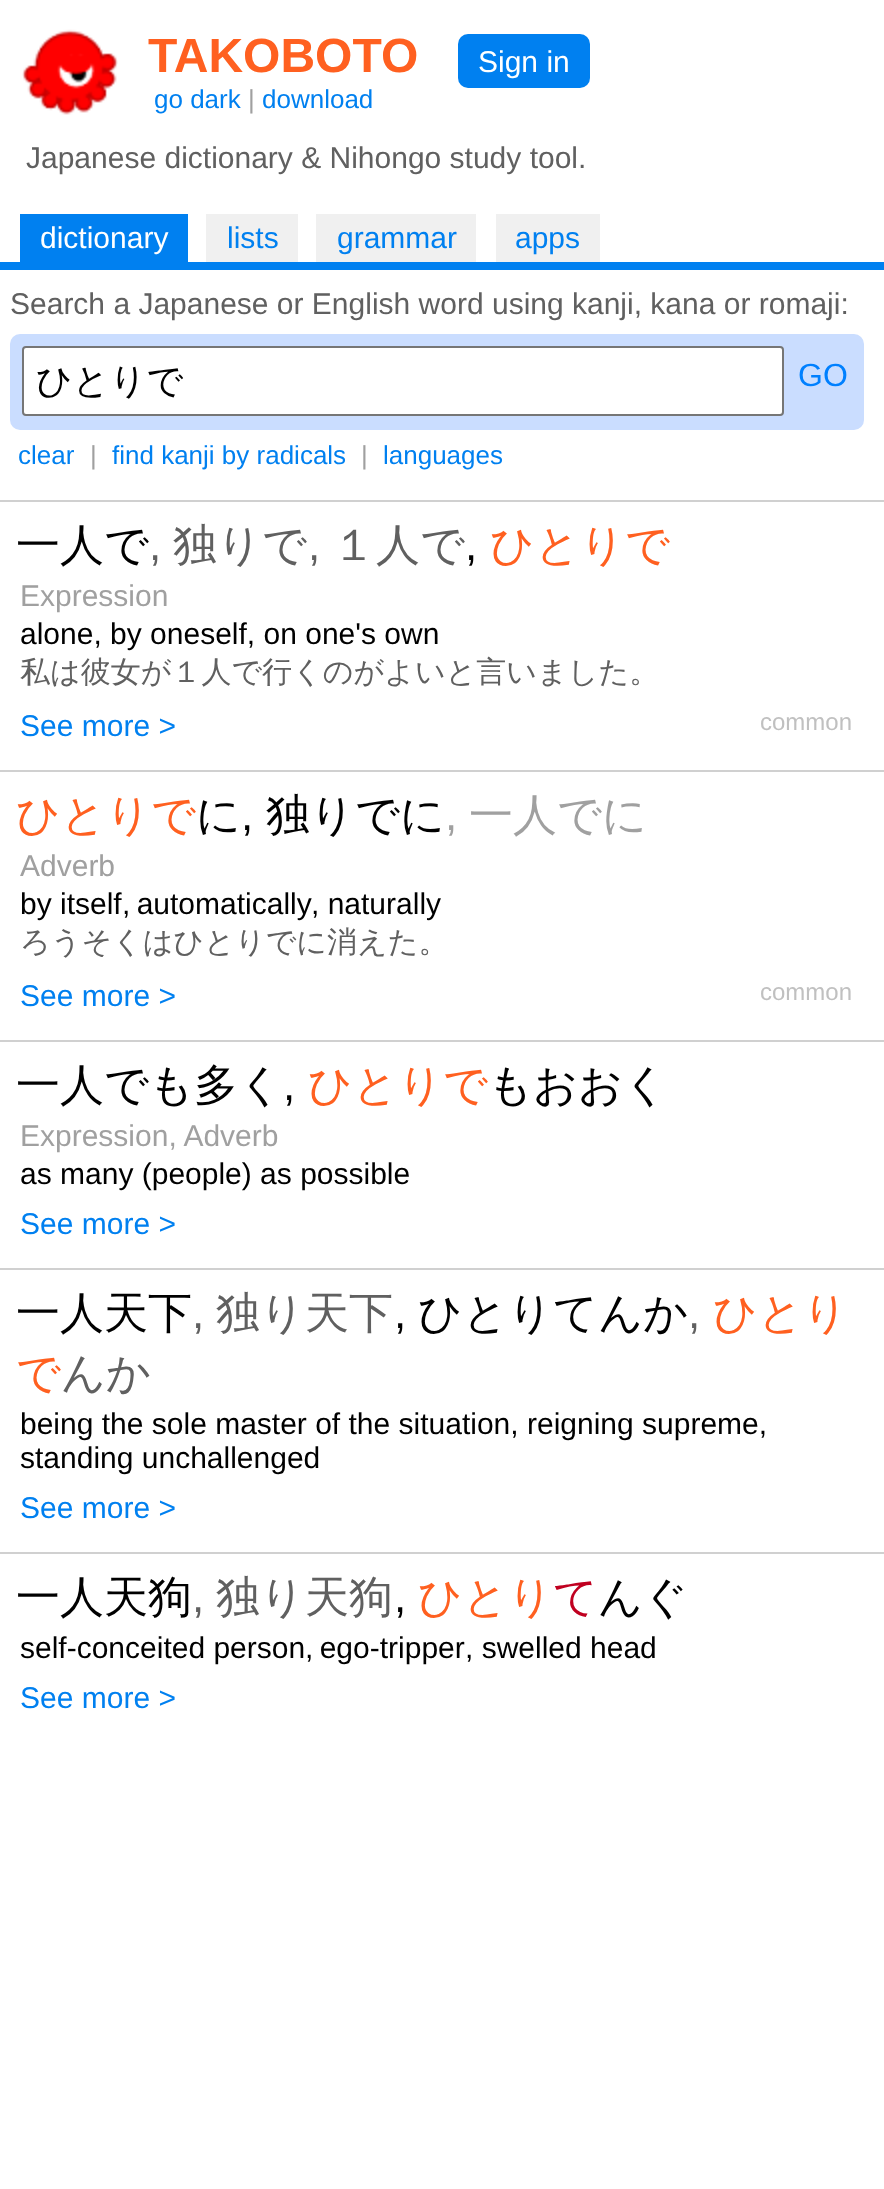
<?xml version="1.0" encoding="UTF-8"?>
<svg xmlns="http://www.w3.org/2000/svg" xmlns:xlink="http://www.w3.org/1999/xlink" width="884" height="2189">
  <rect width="100%" height="100%" fill="#ffffff" />
  <rect y="262" width="884" height="8" fill="#0080f0" />
  <image x="22" y="29" width="96" height="86" xlink:href="image1.png" />
  <rect x="458" y="34" width="132" height="54" rx="10" fill="#0080f0" />
  <rect x="20" y="214" width="168" height="48" fill="#0080f0" />
  <rect x="206" y="214" width="92" height="48" fill="#f0f0f0" />
  <rect x="316" y="214" width="160" height="48" fill="#f0f0f0" />
  <rect x="496" y="214" width="104" height="48" fill="#f0f0f0" />
  <rect x="10" y="334" width="854" height="96" rx="10" fill="#caddff" />
  <rect x="23" y="347" width="760" height="68" rx="3" fill="#ffffff" stroke="#767676" stroke-width="2" />
  <rect y="500" width="884" height="2" fill="#d0d0d0" />
  <rect y="770" width="884" height="2" fill="#d0d0d0" />
  <rect y="1040" width="884" height="2" fill="#d0d0d0" />
  <rect y="1268" width="884" height="2" fill="#d0d0d0" />
  <rect y="1552" width="884" height="2" fill="#d0d0d0" />
  <text x="148" y="72" style="font-family: Liberation Sans; font-size: 48px; font-weight: bold; fill: #ff6020">TAKOBOTO</text>
  <text x="154" y="108" style="font-family: Liberation Sans; font-size: 26px; fill: #0080f0">go dark</text>
  <text x="248" y="108" style="font-family: Liberation Sans; font-size: 26px; fill: #a0a0a0">|</text>
  <text x="262" y="108" style="font-family: Liberation Sans; font-size: 26px; fill: #0080f0">download</text>
  <text x="478" y="72" style="font-family: Liberation Sans; font-size: 30px; fill: #ffffff">Sign in</text>
  <text x="26" y="168" style="font-family: Liberation Sans; font-size: 30px; fill: #606060">Japanese dictionary &amp; Nihongo study tool.</text>
  <text x="40" y="248" style="font-family: Liberation Sans; font-size: 30px; fill: #ffffff">dictionary</text>
  <text x="227" y="248" style="font-family: Liberation Sans; font-size: 30px; fill: #0080f0">lists</text>
  <text x="337" y="248" style="font-family: Liberation Sans; font-size: 30px; fill: #0080f0">grammar</text>
  <text x="515" y="248" style="font-family: Liberation Sans; font-size: 30px; fill: #0080f0">apps</text>
  <text x="10" y="314" style="font-family: Liberation Sans; font-size: 30px; fill: #606060">Search a Japanese or English word using kanji, kana or romaji:</text>
  <text x="36" y="393" style="font-family: WenQuanYi Zen Hei; font-size: 36px; font-weight: 500; fill: #000000">ひとりで</text>
  <text x="798" y="386" style="font-family: Liberation Sans; font-size: 32px; fill: #0080ff">GO</text>
  <text x="18" y="464" style="font-family: Liberation Sans; font-size: 26px; fill: #0080f0">clear</text>
  <text x="90" y="464" style="font-family: Liberation Sans; font-size: 26px; fill: #a0a0a0">|</text>
  <text x="112" y="464" style="font-family: Liberation Sans; font-size: 26px; fill: #0080f0">find kanji by radicals</text>
  <text x="361" y="464" style="font-family: Liberation Sans; font-size: 26px; fill: #a0a0a0">|</text>
  <text x="383" y="464" style="font-family: Liberation Sans; font-size: 26px; fill: #0080f0">languages</text>
  <text x="16" y="560" style="font-family: WenQuanYi Zen Hei; font-size: 44px; font-weight: 500; fill: #000000">一人で</text>
  <text x="149" y="560" style="font-family: Liberation Sans; font-size: 44px; fill: #606060">,</text>
  <text x="173" y="560" style="font-family: WenQuanYi Zen Hei; font-size: 44px; font-weight: 500; fill: #606060">独りで</text>
  <text x="308" y="560" style="font-family: Liberation Sans; font-size: 44px; fill: #606060">,</text>
  <text x="332" y="560" style="font-family: WenQuanYi Zen Hei; font-size: 44px; font-weight: 500; fill: #606060">１人で</text>
  <text x="465" y="560" style="font-family: Liberation Sans; font-size: 44px; fill: #000000">,</text>
  <text x="490" y="560" style="font-family: WenQuanYi Zen Hei; font-size: 44px; font-weight: 500; fill: #ff6020">ひとりで</text>
  <text x="20" y="606" style="font-family: Liberation Sans; font-size: 30px; fill: #a0a0a0">Expression</text>
  <text x="20" y="644" style="font-family: Liberation Sans; font-size: 30px; fill: #000000">alone, by oneself, on one's own</text>
  <text x="20" y="682" style="font-family: WenQuanYi Zen Hei; font-size: 30px; font-weight: 500; fill: #606060">私は彼女が１人で行くのがよいと言いました。</text>
  <text x="20" y="736" style="font-family: Liberation Sans; font-size: 30px; fill: #0080f0">See more &gt;</text>
  <text x="760" y="730" style="font-family: Liberation Sans; font-size: 24px; fill: #c0c0c0">common</text>
  <text x="16" y="830" style="font-family: WenQuanYi Zen Hei; font-size: 44px; font-weight: 500; fill: #ff6020">ひとりで</text>
  <text x="196" y="830" style="font-family: WenQuanYi Zen Hei; font-size: 44px; font-weight: 500; fill: #000000">に</text>
  <text x="241" y="830" style="font-family: Liberation Sans; font-size: 44px; fill: #000000">,</text>
  <text x="266" y="830" style="font-family: WenQuanYi Zen Hei; font-size: 44px; font-weight: 500; fill: #000000">独りでに</text>
  <text x="445" y="830" style="font-family: Liberation Sans; font-size: 44px; fill: #a0a0a0">,</text>
  <text x="469" y="830" style="font-family: WenQuanYi Zen Hei; font-size: 44px; font-weight: 500; fill: #a0a0a0">一人でに</text>
  <text x="20" y="876" style="font-family: Liberation Sans; font-size: 30px; fill: #a0a0a0">Adverb</text>
  <text x="20" y="914" style="font-family: Liberation Sans; font-size: 30px; fill: #000000">by itself</text>
  <text x="122" y="914" word-spacing="-2" style="font-family: Liberation Sans; font-size: 30px; fill: #000000">, automatically</text>
  <text x="311" y="914" style="font-family: Liberation Sans; font-size: 30px; fill: #000000">, naturally</text>
  <text x="20" y="952" style="font-family: WenQuanYi Zen Hei; font-size: 30px; font-weight: 500; fill: #606060">ろうそくはひとりでに消えた。</text>
  <text x="20" y="1006" style="font-family: Liberation Sans; font-size: 30px; fill: #0080f0">See more &gt;</text>
  <text x="760" y="1000" style="font-family: Liberation Sans; font-size: 24px; fill: #c0c0c0">common</text>
  <text x="16" y="1100" style="font-family: WenQuanYi Zen Hei; font-size: 44px; font-weight: 500; fill: #000000">一人でも多く</text>
  <text x="283" y="1100" style="font-family: Liberation Sans; font-size: 44px; fill: #000000">,</text>
  <text x="308" y="1100" style="font-family: WenQuanYi Zen Hei; font-size: 44px; font-weight: 500; fill: #ff6020">ひとりで</text>
  <text x="488" y="1100" style="font-family: WenQuanYi Zen Hei; font-size: 44px; font-weight: 500; fill: #000000">もおおく</text>
  <text x="20" y="1146" style="font-family: Liberation Sans; font-size: 30px; fill: #a0a0a0">Expression, Adverb</text>
  <text x="20" y="1184" style="font-family: Liberation Sans; font-size: 30px; fill: #000000">as many (people) as possible</text>
  <text x="20" y="1234" style="font-family: Liberation Sans; font-size: 30px; fill: #0080f0">See more &gt;</text>
  <text x="16" y="1328" style="font-family: WenQuanYi Zen Hei; font-size: 44px; font-weight: 500; fill: #000000">一人天下</text>
  <text x="192" y="1328" style="font-family: Liberation Sans; font-size: 44px; fill: #606060">,</text>
  <text x="216" y="1328" style="font-family: WenQuanYi Zen Hei; font-size: 44px; font-weight: 500; fill: #606060">独り天下</text>
  <text x="394" y="1328" style="font-family: Liberation Sans; font-size: 44px; fill: #000000">,</text>
  <text x="418" y="1328" style="font-family: WenQuanYi Zen Hei; font-size: 44px; font-weight: 500; fill: #000000">ひとりてんか</text>
  <text x="688" y="1328" style="font-family: Liberation Sans; font-size: 44px; fill: #606060">,</text>
  <text x="713" y="1328" style="font-family: WenQuanYi Zen Hei; font-size: 44px; font-weight: 500; fill: #ff6020">ひとり</text>
  <text x="16" y="1388" style="font-family: WenQuanYi Zen Hei; font-size: 44px; font-weight: 500; fill: #ff6020">で</text>
  <text x="61" y="1388" style="font-family: WenQuanYi Zen Hei; font-size: 44px; font-weight: 500; fill: #606060">んか</text>
  <text x="20" y="1434" style="font-family: Liberation Sans; font-size: 30px; fill: #000000">being the sole master of the situation, reigning supreme,</text>
  <text x="20" y="1468" style="font-family: Liberation Sans; font-size: 30px; fill: #000000">standing unchallenged</text>
  <text x="20" y="1518" style="font-family: Liberation Sans; font-size: 30px; fill: #0080f0">See more &gt;</text>
  <text x="16" y="1612" style="font-family: WenQuanYi Zen Hei; font-size: 44px; font-weight: 500; fill: #000000">一人天狗</text>
  <text x="192" y="1612" style="font-family: Liberation Sans; font-size: 44px; fill: #606060">,</text>
  <text x="216" y="1612" style="font-family: WenQuanYi Zen Hei; font-size: 44px; font-weight: 500; fill: #606060">独り天狗</text>
  <text x="394" y="1612" style="font-family: Liberation Sans; font-size: 44px; fill: #000000">,</text>
  <text x="418" y="1612" style="font-family: WenQuanYi Zen Hei; font-size: 44px; font-weight: 500; fill: #ff6020">ひとり</text>
  <text x="553" y="1612" style="font-family: WenQuanYi Zen Hei; font-size: 44px; font-weight: 500; fill: #c00020">て</text>
  <text x="598" y="1612" style="font-family: WenQuanYi Zen Hei; font-size: 44px; font-weight: 500; fill: #000000">んぐ</text>
  <text x="20" y="1658" style="font-family: Liberation Sans; font-size: 30px; fill: #000000">self-conceited person</text>
  <text x="305" y="1658" word-spacing="-2" style="font-family: Liberation Sans; font-size: 30px; fill: #000000">, ego-tripper</text>
  <text x="465" y="1658" style="font-family: Liberation Sans; font-size: 30px; fill: #000000">, swelled head</text>
  <text x="20" y="1708" style="font-family: Liberation Sans; font-size: 30px; fill: #0080f0">See more &gt;</text>
</svg>
